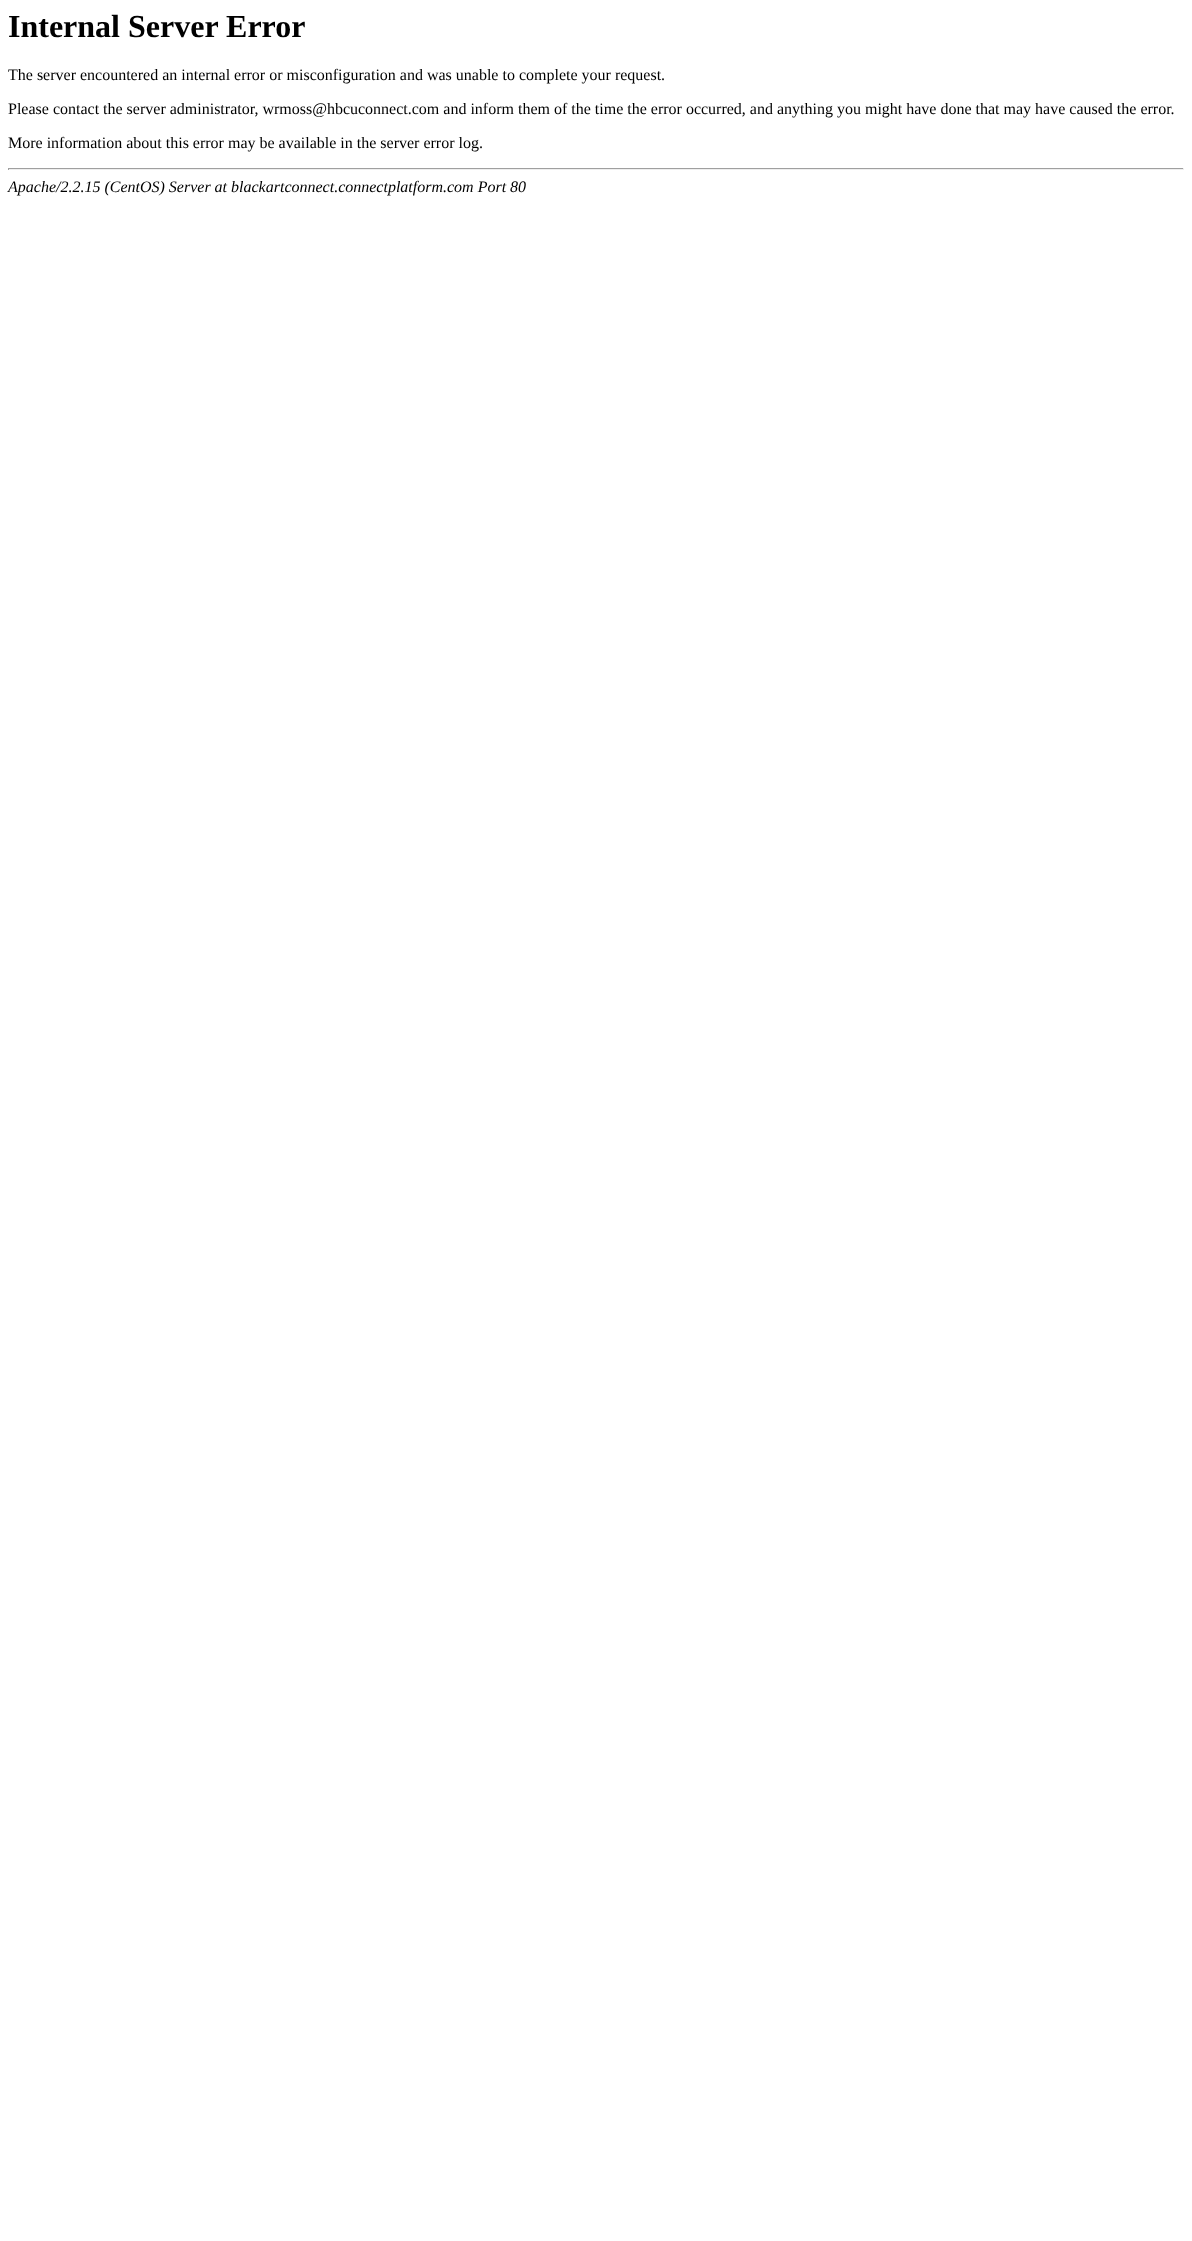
<?xml version="1.0" encoding="UTF-8"?>
<svg xmlns="http://www.w3.org/2000/svg" xmlns:xlink="http://www.w3.org/1999/xlink" width="1192" height="2241">
  <rect width="100%" height="100%" fill="#ffffff" />
  <rect x="8" y="168" width="1176" height="1" fill="#9f9f9f" />
  <rect x="1183" y="168" width="1" height="2" fill="#eeeeee" />
  <rect x="8" y="169" width="1176" height="1" fill="#eeeeee" />
  <rect x="8" y="168" width="1" height="2" fill="#9f9f9f" />
  <text x="8" y="37" style="font-family: Liberation Serif; font-size: 32px; font-weight: bold; fill: #000000">Internal Server Error</text>
  <text x="8" y="80" style="font-family: Liberation Serif; font-size: 16px; fill: #000000">The server encountered an internal error or misconfiguration and was unable to complete your request.</text>
  <text x="8" y="114" style="font-family: Liberation Serif; font-size: 16px; fill: #000000">Please contact the server administrator, wrmoss@hbcuconnect.com and inform them of the time the error occurred, and anything you might have done that may have caused the error.</text>
  <text x="8" y="148" style="font-family: Liberation Serif; font-size: 16px; fill: #000000">More information about this error may be available in the server error log.</text>
  <text x="8" y="192" style="font-family: Liberation Serif; font-size: 16px; font-style: italic; fill: #000000">Apache/2.2.15 (CentOS) Server at blackartconnect.connectplatform.com Port 80</text>
</svg>
